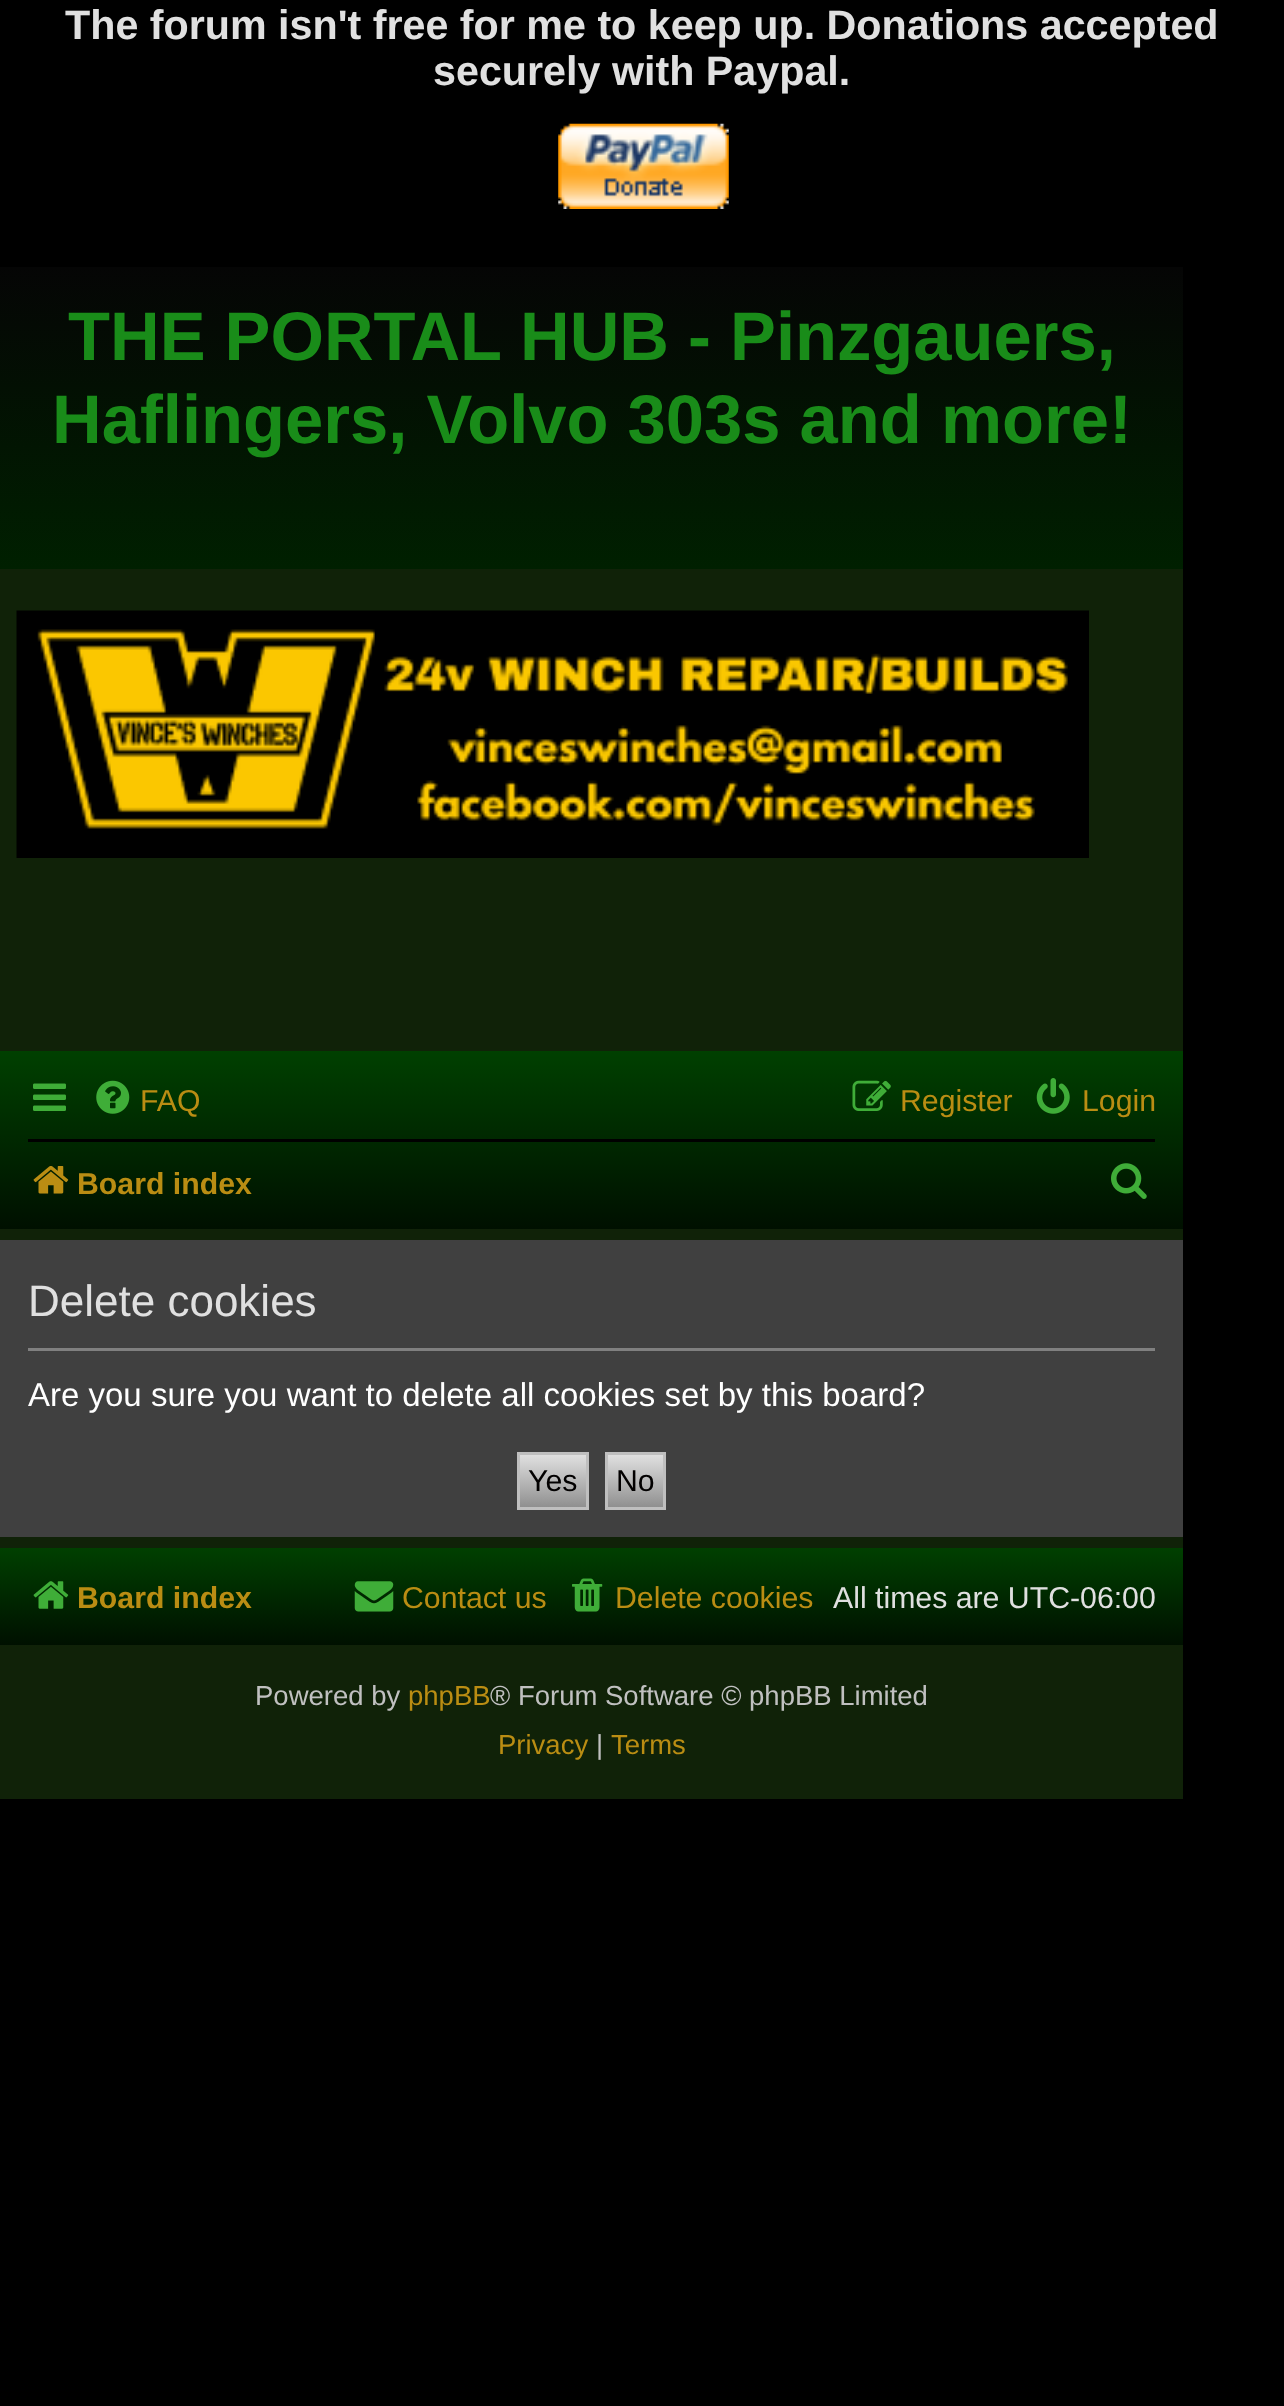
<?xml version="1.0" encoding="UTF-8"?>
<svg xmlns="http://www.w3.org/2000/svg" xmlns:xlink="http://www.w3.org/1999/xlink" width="1284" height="2406">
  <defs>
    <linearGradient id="g1" gradientUnits="userSpaceOnUse" x1="591" y1="267" x2="591" y2="569"><stop offset="0" stop-color="#050505" /><stop offset="1" stop-color="#002000" /></linearGradient>
    <linearGradient id="g2" gradientUnits="userSpaceOnUse" x1="591" y1="1051" x2="591" y2="1229"><stop offset="0" stop-color="#004000" /><stop offset="1" stop-color="#001000" /></linearGradient>
    <linearGradient id="g3" gradientUnits="userSpaceOnUse" x1="553" y1="1455" x2="553" y2="1507"><stop offset="0" stop-color="#e0e0e0" /><stop offset="1" stop-color="#909090" /></linearGradient>
    <linearGradient id="g4" gradientUnits="userSpaceOnUse" x1="635" y1="1455" x2="635" y2="1507"><stop offset="0" stop-color="#e0e0e0" /><stop offset="1" stop-color="#909090" /></linearGradient>
    <linearGradient id="g5" gradientUnits="userSpaceOnUse" x1="591" y1="1548" x2="591" y2="1645"><stop offset="0" stop-color="#004000" /><stop offset="1" stop-color="#001000" /></linearGradient>
  </defs>
  <rect width="100%" height="100%" fill="#000000" />
  <image x="558" y="123" width="171" height="86" xlink:href="image1.png" />
  <rect y="569" width="1183" height="1230" fill="#102208" />
  <rect y="267" width="1183" height="302" fill="url(#g1)" />
  <image x="16" y="610" width="1073" height="248" xlink:href="image2.png" />
  <rect y="1051" width="1183" height="178" fill="url(#g2)" />
  <image x="33" y="1083" width="33" height="28" xlink:href="image3.png" />
  <image x="96" y="1080" width="34" height="34" xlink:href="image4.png" />
  <image x="852" y="1080" width="39" height="31" xlink:href="image5.png" />
  <image x="1036" y="1078" width="34" height="36" xlink:href="image6.png" />
  <rect x="28" y="1139" width="1127" height="3" fill="#000000" />
  <image x="33" y="1166" width="36" height="28" xlink:href="image7.png" />
  <image x="1111" y="1163" width="36" height="36" xlink:href="image8.png" />
  <rect y="1240" width="1183" height="297" fill="#404040" />
  <rect x="28" y="1348" width="1127" height="3" fill="#808080" />
  <rect x="520" y="1455" width="66" height="52" fill="url(#g3)" />
  <rect x="518.5" y="1453.5" width="69" height="55" fill="none" stroke="#bfbfbf" stroke-width="3" />
  <rect x="608" y="1455" width="55" height="52" fill="url(#g4)" />
  <rect x="606.5" y="1453.5" width="58" height="55" fill="none" stroke="#bfbfbf" stroke-width="3" />
  <rect y="1548" width="1183" height="97" fill="url(#g5)" />
  <image x="33" y="1581" width="36" height="28" xlink:href="image9.png" />
  <image x="354" y="1581" width="40" height="31" xlink:href="image10.png" />
  <image x="572" y="1578" width="31" height="34" xlink:href="image11.png" />
  <text x="65" y="39" style="font-family: Liberation Sans; font-size: 41.25px; font-weight: bold; fill: #e0e0e0">The forum isn't free for me to keep up. Donations accepted</text>
  <text x="433" y="85" style="font-family: Liberation Sans; font-size: 41.25px; font-weight: bold; fill: #e0e0e0">securely with Paypal.</text>
  <text x="68" y="360" style="font-family: Liberation Sans; font-size: 68.75px; font-weight: bold; fill: #198c19">THE PORTAL HUB - Pinzgauers,</text>
  <text x="52" y="443" style="font-family: Liberation Sans; font-size: 68.75px; font-weight: bold; fill: #198c19">Haflingers, Volvo 303s and more!</text>
  <text x="140" y="1111" style="font-family: Liberation Sans; font-size: 30.25px; fill: #ba8d13">FAQ</text>
  <text x="900" y="1111" style="font-family: Liberation Sans; font-size: 30.25px; fill: #ba8d13">Register</text>
  <text x="1082" y="1111" style="font-family: Liberation Sans; font-size: 30.25px; fill: #ba8d13">Login</text>
  <text x="77" y="1194" style="font-family: Liberation Sans; font-size: 30.25px; font-weight: bold; fill: #ba8d13">Board index</text>
  <text x="28" y="1316" style="font-family: Liberation Sans; font-size: 44px; fill: #e0e0e0">Delete cookies</text>
  <text x="28" y="1406" style="font-family: Liberation Sans; font-size: 33px; fill: #ffffff">Are you sure you want to delete all cookies set by this board?</text>
  <text x="528" y="1491" style="font-family: Liberation Sans; font-size: 30.25px; fill: #020000">Yes</text>
  <text x="616" y="1491" style="font-family: Liberation Sans; font-size: 30.25px; fill: #020000">No</text>
  <text x="77" y="1608" style="font-family: Liberation Sans; font-size: 30.25px; font-weight: bold; fill: #ba8d13">Board index</text>
  <text x="402" y="1608" style="font-family: Liberation Sans; font-size: 30.25px; fill: #ba8d13">Contact us</text>
  <text x="615" y="1608" style="font-family: Liberation Sans; font-size: 30.25px; fill: #ba8d13">Delete cookies</text>
  <text x="833" y="1608" style="font-family: Liberation Sans; font-size: 30.25px; fill: #e0e0e0">All times are UTC-06:00</text>
  <text x="255" y="1705" style="font-family: Liberation Sans; font-size: 27.5px; fill: #c0c0c0">Powered by</text>
  <text x="408" y="1705" style="font-family: Liberation Sans; font-size: 27.5px; fill: #ba8d13">phpBB</text>
  <text x="490" y="1705" style="font-family: Liberation Sans; font-size: 27.5px; fill: #c0c0c0">® Forum Software © phpBB Limited</text>
  <text x="498" y="1754" style="font-family: Liberation Sans; font-size: 27.5px; fill: #ba8d13">Privacy</text>
  <text x="596" y="1754" style="font-family: Liberation Sans; font-size: 27.5px; fill: #c0c0c0">|</text>
  <text x="611" y="1754" style="font-family: Liberation Sans; font-size: 27.5px; fill: #ba8d13">Terms</text>
</svg>
